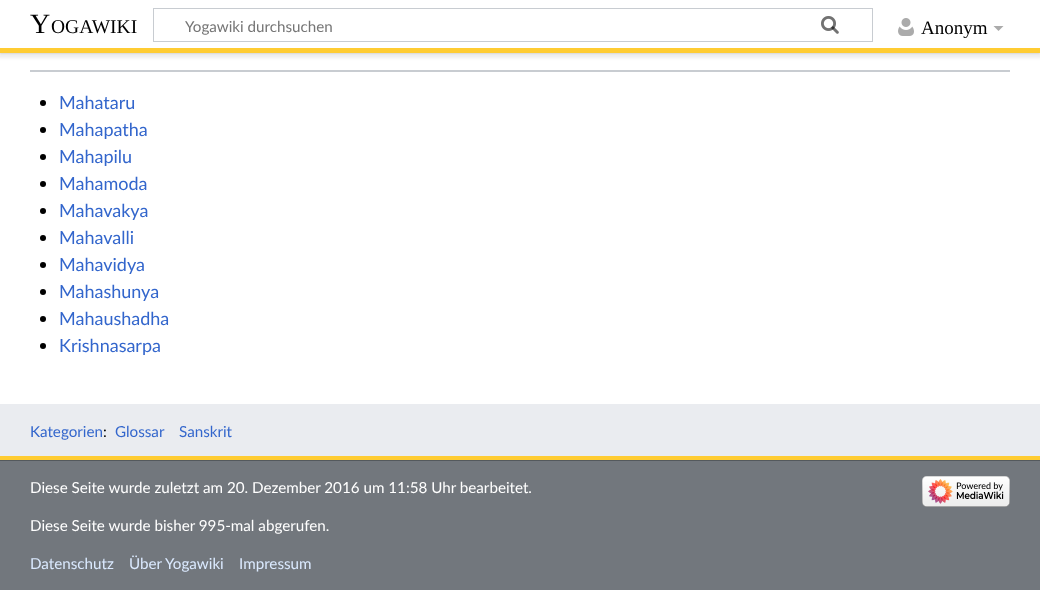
<?xml version="1.0" encoding="UTF-8"?>
<svg xmlns="http://www.w3.org/2000/svg" xmlns:xlink="http://www.w3.org/1999/xlink" width="1040" height="590">
  <rect width="100%" height="100%" fill="#72777d" />
  <rect y="53" width="1040" height="351" fill="#ffffff" />
  <rect y="48" width="1040" height="5" fill="#000000" fill-opacity="0.2" filter="blur(1px)" />
  <rect x="-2" y="49" width="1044" height="9" fill="#000000" fill-opacity="0.07" filter="blur(1.5px)" />
  <rect width="1040" height="48" fill="#ffffff" />
  <rect x="153.5" y="8.5" width="719" height="33" fill="none" stroke="#c8ccd1" />
  <image x="821" y="16" width="18" height="18" xlink:href="image1.png" />
  <image x="821" y="16" width="18" height="18" xlink:href="image2.png" />
  <image x="898" y="18" width="16" height="18" xlink:href="image3.png" />
  <path d="M 1003.5 26 l -5 5 l -5 -5 z" fill="#ababab" />
  <rect y="48" width="1040" height="5" fill="#ffcc32" />
  <rect y="404" width="1040" height="52" fill="#eaecf0" />
  <rect y="456" width="1040" height="4" fill="#ffcc32" />
  <rect x="30" y="70" width="980" height="2" fill="#c8ccd1" />
  <circle cx="43" cy="103" r="3" fill="#000000" />
  <circle cx="43" cy="130" r="3" fill="#000000" />
  <circle cx="43" cy="157" r="3" fill="#000000" />
  <circle cx="43" cy="184" r="3" fill="#000000" />
  <circle cx="43" cy="211" r="3" fill="#000000" />
  <circle cx="43" cy="238" r="3" fill="#000000" />
  <circle cx="43" cy="265" r="3" fill="#000000" />
  <circle cx="43" cy="292" r="3" fill="#000000" />
  <circle cx="43" cy="319" r="3" fill="#000000" />
  <circle cx="43" cy="346" r="3" fill="#000000" />
  <rect y="460" width="1040" height="1" fill="#54595d" />
  <image x="922" y="476" width="88" height="31" xlink:href="image4.png" />
  <text x="30" y="33" style="font-family: Liberation Serif; font-size: 28px; fill: #000000">Y</text>
  <text x="51" y="33" style="font-family: Liberation Serif; font-size: 19.5px; fill: #000000">OGAWIKI</text>
  <text x="185" y="32" style="font-family: Lato; font-size: 15.2px; fill: #757575">Yogawiki durchsuchen</text>
  <text x="921" y="34" style="font-family: Liberation Serif; font-size: 19px; fill: #000000">Anonym</text>
  <text x="59" y="109" style="font-family: Lato; font-size: 18px; fill: #3366cc">Mahataru</text>
  <text x="59" y="136" style="font-family: Lato; font-size: 18px; fill: #3366cc">Mahapatha</text>
  <text x="59" y="163" style="font-family: Lato; font-size: 18px; fill: #3366cc">Mahapilu</text>
  <text x="59" y="190" style="font-family: Lato; font-size: 18px; fill: #3366cc">Mahamoda</text>
  <text x="59" y="217" style="font-family: Lato; font-size: 18px; fill: #3366cc">Mahavakya</text>
  <text x="59" y="244" style="font-family: Lato; font-size: 18px; fill: #3366cc">Mahavalli</text>
  <text x="59" y="271" style="font-family: Lato; font-size: 18px; fill: #3366cc">Mahavidya</text>
  <text x="59" y="298" style="font-family: Lato; font-size: 18px; fill: #3366cc">Mahashunya</text>
  <text x="59" y="325" style="font-family: Lato; font-size: 18px; fill: #3366cc">Mahaushadha</text>
  <text x="59" y="352" style="font-family: Lato; font-size: 18px; fill: #3366cc">Krishnasarpa</text>
  <text x="30" y="437" style="font-family: Lato; font-size: 15.2px; fill: #3366cc">Kategorien</text>
  <text x="103" y="437" style="font-family: Lato; font-size: 15.2px; fill: #000000">:</text>
  <text x="115" y="437" style="font-family: Lato; font-size: 15.2px; fill: #3366cc">Glossar</text>
  <text x="179" y="437" style="font-family: Lato; font-size: 15.2px; fill: #3366cc">Sanskrit</text>
  <text x="30" y="493" style="font-family: Lato; font-size: 15.2px; fill: #ffffff">Diese Seite wurde zuletzt am 20. Dezember 2016 um 11:58 Uhr bearbeitet.</text>
  <text x="30" y="531" style="font-family: Lato; font-size: 15.2px; fill: #ffffff">Diese Seite wurde bisher 995-mal abgerufen.</text>
  <text x="30" y="569" style="font-family: Lato; font-size: 15.2px; fill: #dbeaff">Datenschutz</text>
  <text x="129" y="569" style="font-family: Lato; font-size: 15.2px; fill: #dbeaff">Über Yogawiki</text>
  <text x="239" y="569" style="font-family: Lato; font-size: 15.2px; fill: #dbeaff">Impressum</text>
</svg>
